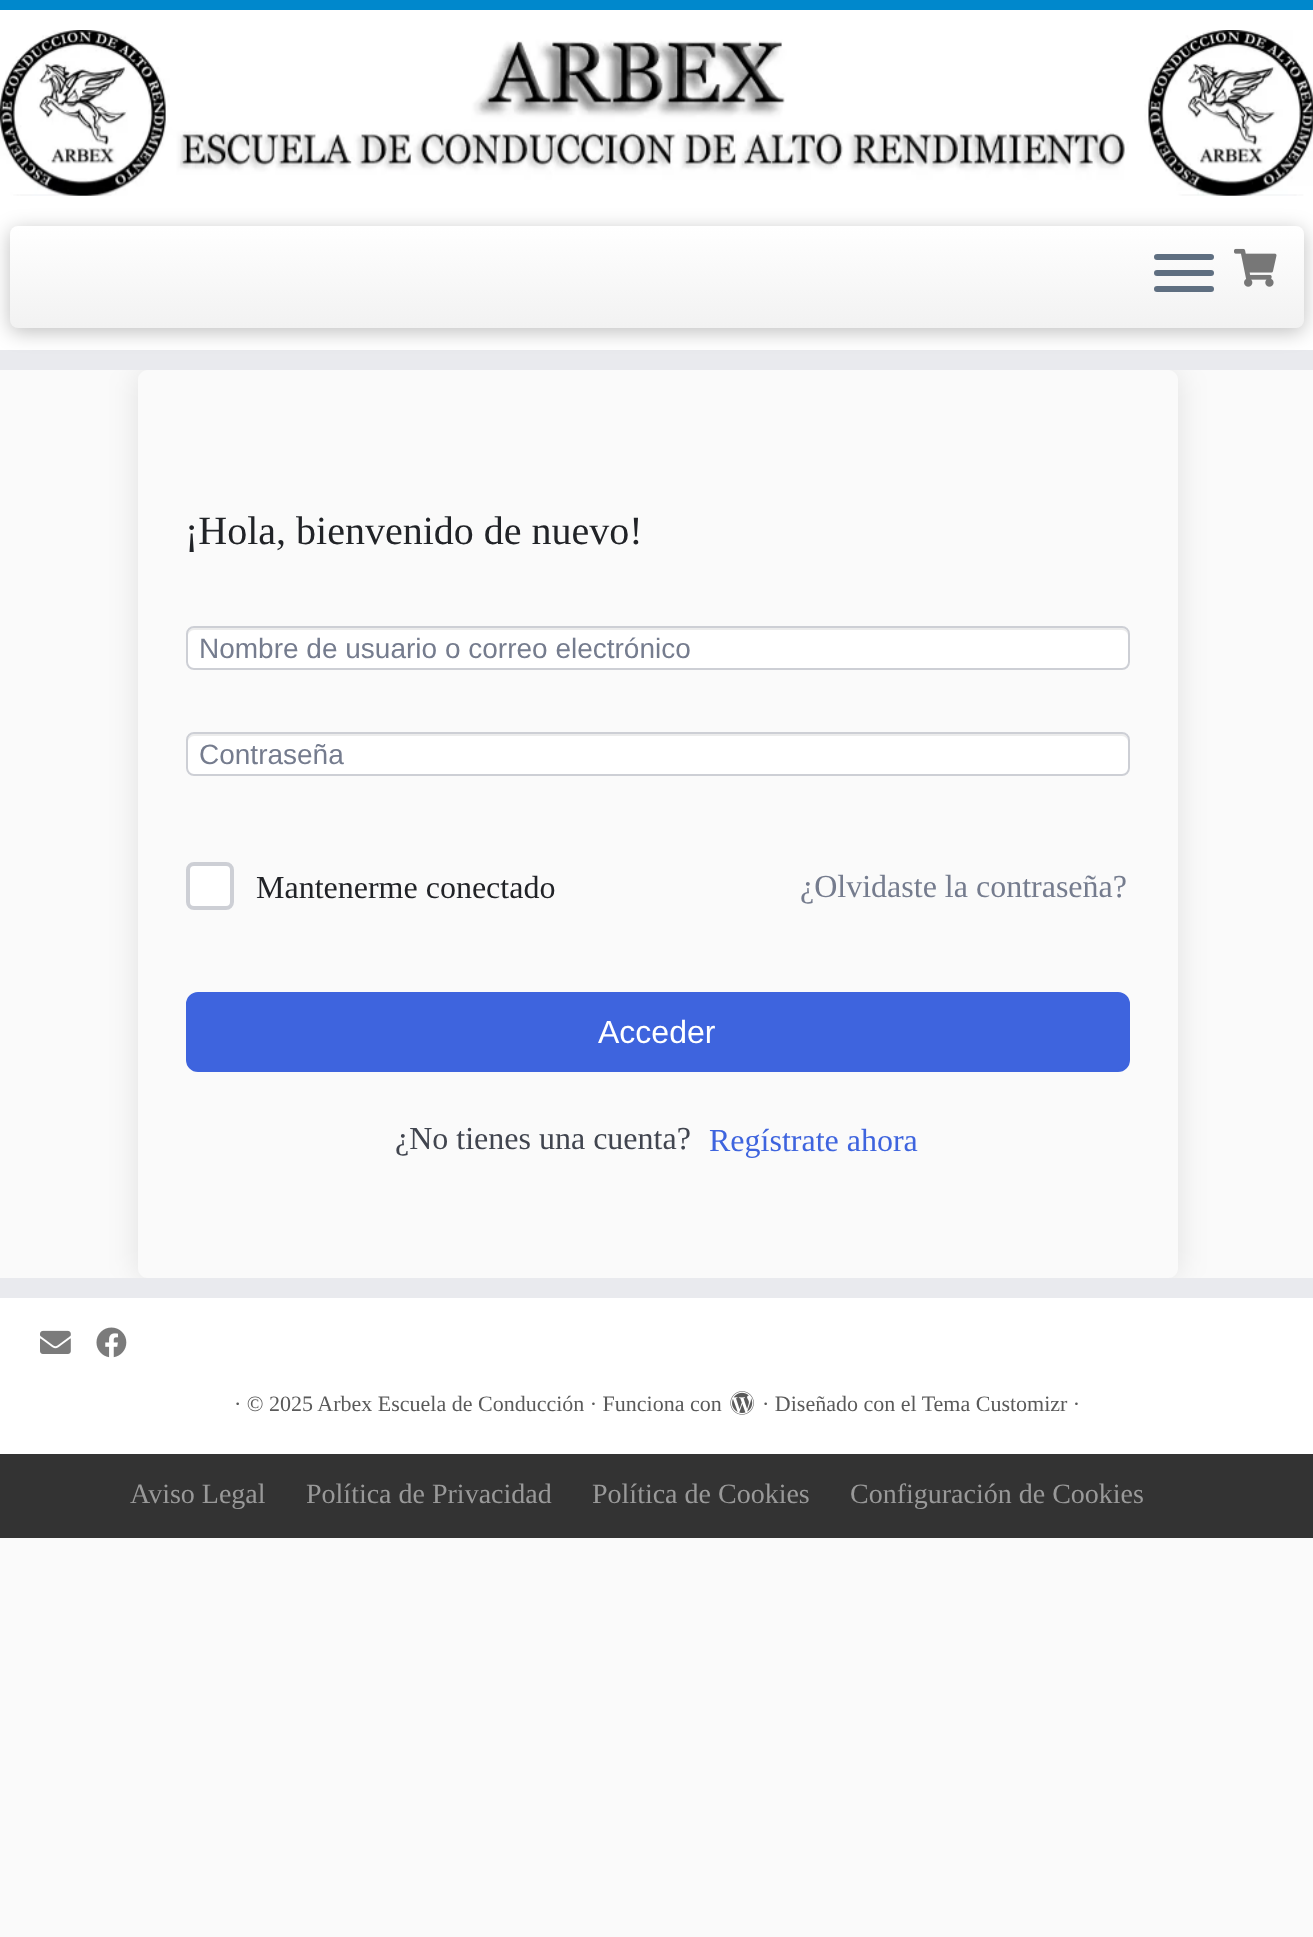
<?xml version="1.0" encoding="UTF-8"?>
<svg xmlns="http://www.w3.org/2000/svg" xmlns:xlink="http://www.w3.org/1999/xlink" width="1313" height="1937">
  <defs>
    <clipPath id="clip1"><path d="M 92 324 h 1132 v 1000 h -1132 z m 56 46 h 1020 c 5.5 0 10 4.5 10 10 v 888 c 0 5.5 -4.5 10 -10 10 h -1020 c -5.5 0 -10 -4.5 -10 -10 v -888 c 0 -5.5 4.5 -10 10 -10 z" clip-rule="evenodd" /></clipPath>
    <linearGradient id="g1" gradientUnits="userSpaceOnUse" x1="657" y1="226" x2="657" y2="328"><stop offset="0" stop-color="#ffffff" /><stop offset="1" stop-color="#f2f2f2" /></linearGradient>
  </defs>
  <rect width="100%" height="100%" fill="#fafafa" />
  <g clip-path="url(#clip1)">
    <rect x="138" y="370" width="1040" height="908" rx="10" fill="#000000" fill-opacity="0.1" filter="blur(15px)" />
  </g>
  <rect y="10" width="1313" height="340" fill="#ffffff" />
  <rect width="1313" height="10" fill="#0088cc" />
  <rect y="350" width="1313" height="20" fill="#e9eaee" />
  <image x="0" y="30" width="1313" height="166" xlink:href="image1.png" />
  <rect x="10" y="230" width="1294" height="102" rx="8" fill="#000000" fill-opacity="0.25" filter="blur(10px)" />
  <rect x="10" y="226" width="1294" height="102" rx="8" fill="url(#g1)" />
  <rect x="1154" y="254" width="60" height="6" rx="3" fill="#5f6f81" />
  <rect x="1154" y="270" width="60" height="6" rx="3" fill="#5f6f81" />
  <rect x="1154" y="286" width="60" height="6" rx="3" fill="#5f6f81" />
  <image x="1234" y="248" width="43" height="39" xlink:href="image2.png" />
  <rect x="186" y="626" width="944" height="44" rx="8" fill="#ffffff" />
  <path d="M 194 630 h 928 c 3 0 6 3 6 6 v -2 c 0 -3 -3 -6 -6 -6 h -928 c -3 0 -6 3 -6 6 v 2 c 0 -3 3 -6 6 -6 z" fill="#ececec" />
  <rect x="187" y="627" width="942" height="42" rx="7" fill="none" stroke="#cdcfd5" stroke-width="2" />
  <rect x="186" y="732" width="944" height="44" rx="8" fill="#ffffff" />
  <path d="M 194 736 h 928 c 3 0 6 3 6 6 v -2 c 0 -3 -3 -6 -6 -6 h -928 c -3 0 -6 3 -6 6 v 2 c 0 -3 3 -6 6 -6 z" fill="#ececec" />
  <rect x="187" y="733" width="942" height="42" rx="7" fill="none" stroke="#cdcfd5" stroke-width="2" />
  <rect x="188" y="864" width="44" height="44" rx="6" fill="#ffffff" stroke="#cdcfd5" stroke-width="4" />
  <rect x="187" y="993" width="942" height="78" rx="11" fill="#3e64de" stroke="#3e64de" stroke-width="2" />
  <rect y="1278" width="1313" height="20" fill="#e9eaee" />
  <rect y="1298" width="1313" height="156" fill="#ffffff" />
  <image x="40" y="1330" width="31" height="24" xlink:href="image3.png" />
  <image x="96" y="1327" width="31" height="31" xlink:href="image4.png" />
  <image x="730" y="1391" width="24" height="24" xlink:href="image5.png" />
  <rect y="1454" width="1313" height="84" fill="#333333" />
  <text x="185" y="544" style="font-family: Liberation Serif; font-size: 40px; fill: #212327">¡Hola, bienvenido de nuevo!</text>
  <text x="199" y="658" style="font-family: Liberation Sans; font-size: 28px; fill: #757c8e">Nombre de usuario o correo electrónico</text>
  <text x="199" y="764" style="font-family: Liberation Sans; font-size: 28px; fill: #757c8e">Contraseña</text>
  <text x="256" y="898" style="font-family: Liberation Serif; font-size: 32px; fill: #212327">Mantenerme conectado</text>
  <text x="800" y="897" style="font-family: Liberation Serif; font-size: 32px; fill: #757c8e">¿Olvidaste la contraseña?</text>
  <text x="598" y="1043" style="font-family: Liberation Sans; font-size: 32px; fill: #ffffff">Acceder</text>
  <text x="395" y="1149" style="font-family: Liberation Serif; font-size: 32px; fill: #41454f">¿No tienes una cuenta?</text>
  <text x="709" y="1151" style="font-family: Liberation Serif; font-size: 32px; fill: #3e64de">Regístrate ahora</text>
  <text x="234" y="1411" style="font-family: Liberation Serif; font-size: 22px; fill: #5a5a5a">· © 2025 Arbex Escuela de Conducción · Funciona con</text>
  <text x="762" y="1411" style="font-family: Liberation Serif; font-size: 22px; fill: #5a5a5a">· Diseñado con el Tema Customizr ·</text>
  <text x="130" y="1503" style="font-family: Liberation Serif; font-size: 28px; fill: #999999">Aviso Legal</text>
  <text x="306" y="1503" style="font-family: Liberation Serif; font-size: 28px; fill: #999999">Política de Privacidad</text>
  <text x="592" y="1503" style="font-family: Liberation Serif; font-size: 28px; fill: #999999">Política de Cookies</text>
  <text x="850" y="1503" style="font-family: Liberation Serif; font-size: 28px; fill: #999999">Configuración de Cookies</text>
</svg>
